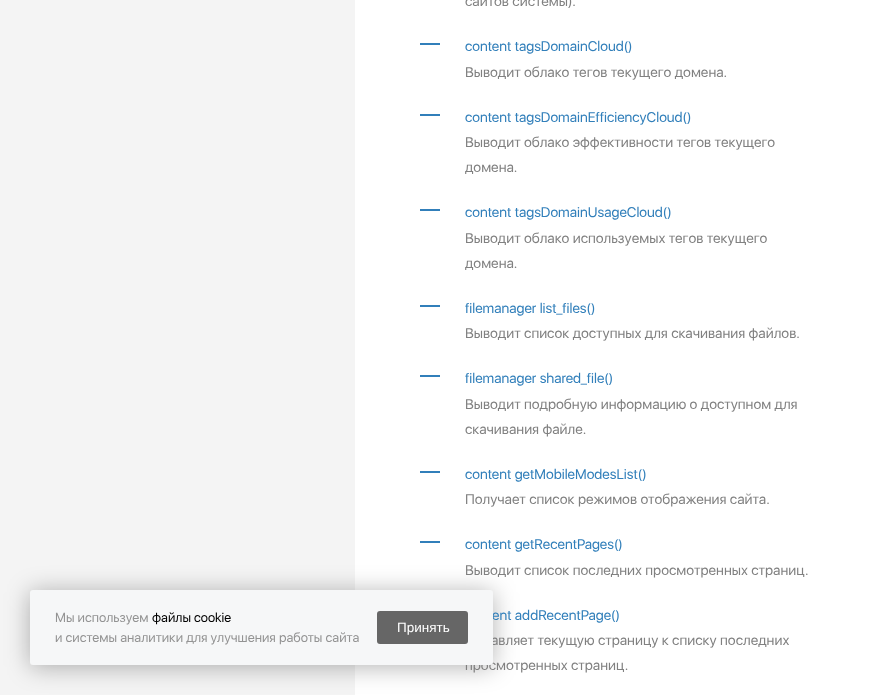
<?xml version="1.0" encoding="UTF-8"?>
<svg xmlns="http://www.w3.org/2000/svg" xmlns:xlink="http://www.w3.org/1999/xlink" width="885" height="695">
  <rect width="100%" height="100%" fill="#f4f4f4" />
  <rect x="355" width="530" height="695" fill="#ffffff" />
  <rect x="30" y="592" width="463" height="75" rx="3" fill="#000000" fill-opacity="0.3" filter="blur(12.5px)" />
  <rect x="420" y="43" width="20" height="2" fill="#317fba" />
  <rect x="420" y="114" width="20" height="2" fill="#317fba" />
  <rect x="420" y="209" width="20" height="2" fill="#317fba" />
  <rect x="420" y="305" width="20" height="2" fill="#317fba" />
  <rect x="420" y="375" width="20" height="2" fill="#317fba" />
  <rect x="420" y="471" width="20" height="2" fill="#317fba" />
  <rect x="420" y="541" width="20" height="2" fill="#317fba" />
  <text x="465" y="6" style="font-family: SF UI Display; font-size: 14px; fill: #808080">сайтов системы).</text>
  <text x="465" y="51" style="font-family: SF UI Display; font-size: 14px; fill: #317fba">content tagsDomainCloud()</text>
  <text x="465" y="77" style="font-family: SF UI Display; font-size: 14px; fill: #808080">Выводит облако тегов текущего домена.</text>
  <text x="465" y="122" style="font-family: SF UI Display; font-size: 14px; fill: #317fba">content tagsDomainEfficiencyCloud()</text>
  <text x="465" y="147" style="font-family: SF UI Display; font-size: 14px; fill: #808080">Выводит облако эффективности тегов текущего</text>
  <text x="465" y="172" style="font-family: SF UI Display; font-size: 14px; fill: #808080">домена.</text>
  <text x="465" y="217" style="font-family: SF UI Display; font-size: 14px; fill: #317fba">content tagsDomainUsageCloud()</text>
  <text x="465" y="243" style="font-family: SF UI Display; font-size: 14px; fill: #808080">Выводит облако используемых тегов текущего</text>
  <text x="465" y="268" style="font-family: SF UI Display; font-size: 14px; fill: #808080">домена.</text>
  <text x="465" y="313" style="font-family: SF UI Display; font-size: 14px; fill: #317fba">filemanager list_files()</text>
  <text x="465" y="338" style="font-family: SF UI Display; font-size: 14px; fill: #808080">Выводит список доступных для скачивания файлов.</text>
  <text x="465" y="383" style="font-family: SF UI Display; font-size: 14px; fill: #317fba">filemanager shared_file()</text>
  <text x="465" y="409" style="font-family: SF UI Display; font-size: 14px; fill: #808080">Выводит подробную информацию о доступном для</text>
  <text x="465" y="434" style="font-family: SF UI Display; font-size: 14px; fill: #808080">скачивания файле.</text>
  <text x="465" y="479" style="font-family: SF UI Display; font-size: 14px; fill: #317fba">content getMobileModesList()</text>
  <text x="465" y="504" style="font-family: SF UI Display; font-size: 14px; fill: #808080">Получает список режимов отображения сайта.</text>
  <text x="465" y="549" style="font-family: SF UI Display; font-size: 14px; fill: #317fba">content getRecentPages()</text>
  <text x="465" y="575" style="font-family: SF UI Display; font-size: 14px; fill: #808080">Выводит список последних просмотренных страниц.</text>
  <text x="492" y="620" style="font-family: SF UI Display; font-size: 14px; fill: #317fba">ent addRecentPage()</text>
  <text x="491" y="645" style="font-family: SF UI Display; font-size: 14px; fill: #808080">авляет текущую страницу к списку последних</text>
  <text x="465" y="670" style="font-family: SF UI Display; font-size: 14px; fill: #808080">просмотренных страниц.</text>
  <rect x="30" y="590" width="463" height="75" rx="3" fill="#f6f7f8" />
  <rect x="377" y="611" width="91" height="33" rx="3" fill="#666666" />
  <text x="397" y="632" style="font-family: Liberation Sans; font-size: 13.5px; fill: #ffffff">Принять</text>
  <text x="55" y="642" style="font-family: SF UI Display; font-size: 13px; fill: #939393">и системы аналитики для улучшения работы сайта</text>
  <text x="152" y="622" style="font-family: SF UI Display; font-size: 13px; fill: #000000">файлы cookie</text>
  <text x="55" y="622" style="font-family: SF UI Display; font-size: 13px; fill: #939393">Мы используем</text>
</svg>
